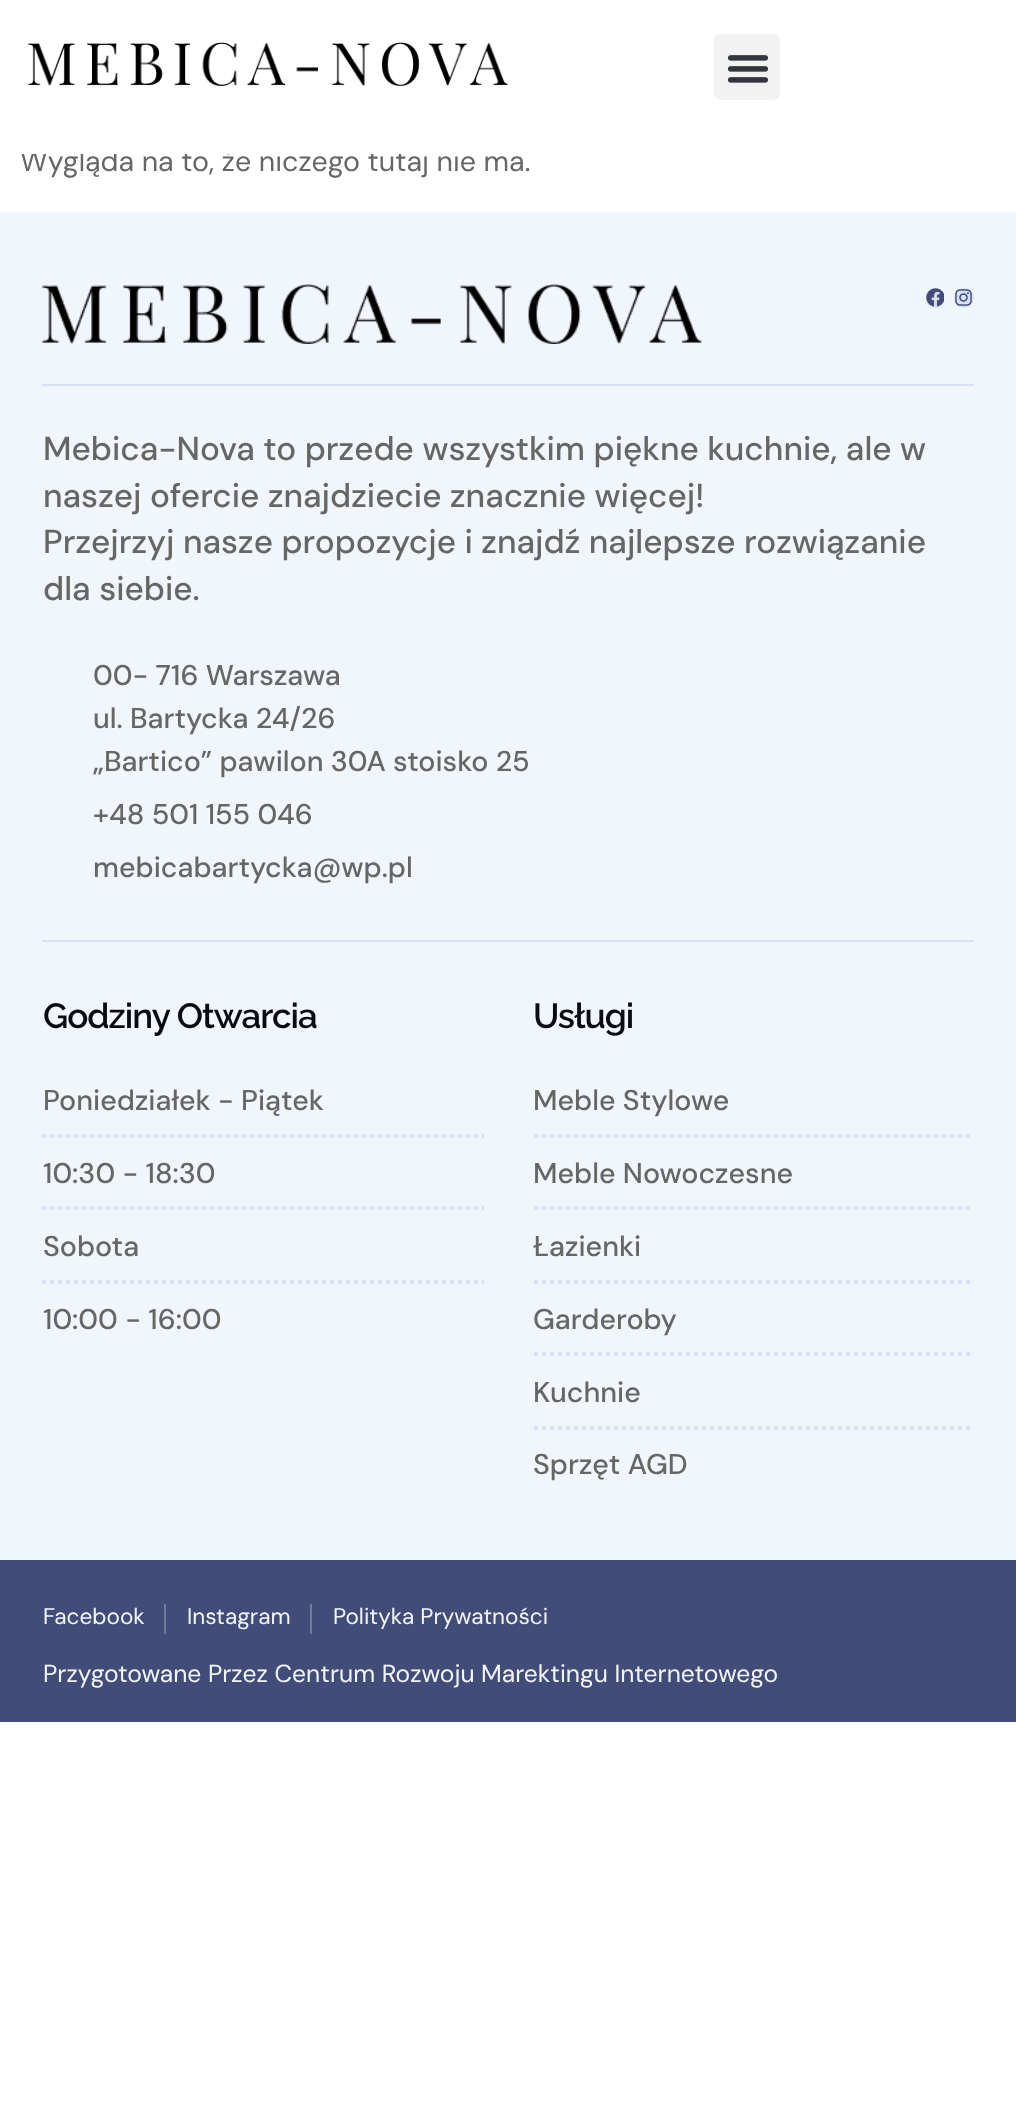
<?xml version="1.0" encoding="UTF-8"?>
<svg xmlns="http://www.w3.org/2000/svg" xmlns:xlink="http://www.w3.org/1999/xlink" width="1016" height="2126">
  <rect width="100%" height="100%" fill="#ffffff" />
  <image x="28" y="42" width="480" height="44" xlink:href="image1.png" />
  <rect x="714" y="34" width="66" height="66" rx="6" fill="#f2f2f2" />
  <image x="727" y="55" width="42" height="28" xlink:href="image2.png" />
  <rect y="212" width="1016" height="1348" fill="#f1f5fc" />
  <rect x="42" y="384" width="932" height="2" fill="#d6e1f5" />
  <image x="42" y="284" width="660" height="60" xlink:href="image3.png" />
  <rect x="926" y="288" width="18" height="20" rx="9" fill="#d6e1f5" />
  <image x="926" y="288" width="18" height="19" xlink:href="image4.png" />
  <circle cx="964" cy="298" r="10" fill="#d6e1f5" />
  <image x="955" y="289" width="17" height="17" xlink:href="image5.png" />
  <rect x="42" y="940" width="932" height="2" fill="#d6e1f5" />
  <path d="M 42 1136 h 442" fill="none" stroke="#d6e1f5" stroke-width="4" stroke-dasharray="4 4" />
  <path d="M 42 1208 h 442" fill="none" stroke="#d6e1f5" stroke-width="4" stroke-dasharray="4 4" />
  <path d="M 42 1282 h 442" fill="none" stroke="#d6e1f5" stroke-width="4" stroke-dasharray="4 4" />
  <path d="M 534 1136 h 440" fill="none" stroke="#d6e1f5" stroke-width="4" stroke-dasharray="4 4" />
  <path d="M 534 1208 h 440" fill="none" stroke="#d6e1f5" stroke-width="4" stroke-dasharray="4 4" />
  <path d="M 534 1282 h 440" fill="none" stroke="#d6e1f5" stroke-width="4" stroke-dasharray="4 4" />
  <path d="M 534 1354 h 440" fill="none" stroke="#d6e1f5" stroke-width="4" stroke-dasharray="4 4" />
  <path d="M 534 1428 h 440" fill="none" stroke="#d6e1f5" stroke-width="4" stroke-dasharray="4 4" />
  <rect y="1560" width="1016" height="162" fill="#414d78" />
  <rect x="164" y="1604" width="2" height="30" fill="#717a9a" />
  <rect x="310" y="1604" width="2" height="30" fill="#717a9a" />
  <text x="20" y="171" style="font-family: DM Sans; font-size: 28.6px; fill: #666666">Wygląda na to, że niczego tutaj nie ma.</text>
  <rect x="20" y="150" width="439" height="4" fill="#ffffff" />
  <text x="43" y="460" style="font-family: DM Sans; font-size: 33.3px; font-weight: 500; fill: #666666">Mebica-Nova to przede wszystkim piękne kuchnie, ale w</text>
  <text x="43" y="507" style="font-family: DM Sans; font-size: 33.3px; font-weight: 500; fill: #666666">naszej ofercie znajdziecie znacznie więcej!</text>
  <text x="43" y="553" style="font-family: DM Sans; font-size: 33.3px; font-weight: 500; fill: #666666">Przejrzyj nasze propozycje i znajdź najlepsze rozwiązanie</text>
  <text x="43" y="600" style="font-family: DM Sans; font-size: 33.3px; font-weight: 500; fill: #666666">dla siebie.</text>
  <text x="93" y="685" style="font-family: DM Sans; font-size: 28.6px; font-weight: 500; fill: #666666">00- 716 Warszawa</text>
  <text x="93" y="728" style="font-family: DM Sans; font-size: 28.6px; font-weight: 500; fill: #666666">ul. Bartycka 24/26</text>
  <text x="93" y="771" style="font-family: DM Sans; font-size: 28.6px; font-weight: 500; fill: #666666">„Bartico” pawilon 30A stoisko 25</text>
  <text x="93" y="824" style="font-family: DM Sans; font-size: 28.6px; font-weight: 500; fill: #666666">+48 501 155 046</text>
  <text x="93" y="877" style="font-family: DM Sans; font-size: 28.6px; font-weight: 500; fill: #666666">mebicabartycka@wp.pl</text>
  <text x="43" y="1028" style="font-family: Raleway; font-size: 35px; font-weight: 600; letter-spacing: -1px; fill: #0a0c12">Godziny Otwarcia</text>
  <text x="43" y="1110" style="font-family: DM Sans; font-size: 28.6px; font-weight: 500; fill: #666666">Poniedziałek - Piątek</text>
  <text x="43" y="1183" style="font-family: DM Sans; font-size: 28.6px; font-weight: 500; fill: #666666">10:30 - 18:30</text>
  <text x="43" y="1256" style="font-family: DM Sans; font-size: 28.6px; font-weight: 500; fill: #666666">Sobota</text>
  <text x="43" y="1329" style="font-family: DM Sans; font-size: 28.6px; font-weight: 500; fill: #666666">10:00 - 16:00</text>
  <text x="533" y="1028" style="font-family: Raleway; font-size: 35px; font-weight: 600; letter-spacing: -1px; fill: #0a0c12">Usługi</text>
  <text x="533" y="1110" style="font-family: DM Sans; font-size: 28.6px; font-weight: 500; fill: #666666">Meble Stylowe</text>
  <text x="533" y="1183" style="font-family: DM Sans; font-size: 28.6px; font-weight: 500; fill: #666666">Meble Nowoczesne</text>
  <text x="533" y="1256" style="font-family: DM Sans; font-size: 28.6px; font-weight: 500; fill: #666666">Łazienki</text>
  <text x="533" y="1329" style="font-family: DM Sans; font-size: 28.6px; font-weight: 500; fill: #666666">Garderoby</text>
  <text x="533" y="1402" style="font-family: DM Sans; font-size: 28.6px; font-weight: 500; fill: #666666">Kuchnie</text>
  <text x="533" y="1474" style="font-family: DM Sans; font-size: 28.6px; font-weight: 500; fill: #666666">Sprzęt AGD</text>
  <text x="43" y="1624" style="font-family: DM Sans; font-size: 22.6px; fill: #f1f5fc">Facebook</text>
  <text x="187" y="1624" style="font-family: DM Sans; font-size: 22.6px; fill: #f1f5fc">Instagram</text>
  <text x="333" y="1624" style="font-family: DM Sans; font-size: 22.6px; fill: #f1f5fc">Polityka Prywatności</text>
  <text x="43" y="1682" style="font-family: DM Sans; font-size: 24.65px; fill: #f1f5fc">Przygotowane Przez Centrum Rozwoju Marektingu Internetowego</text>
</svg>
